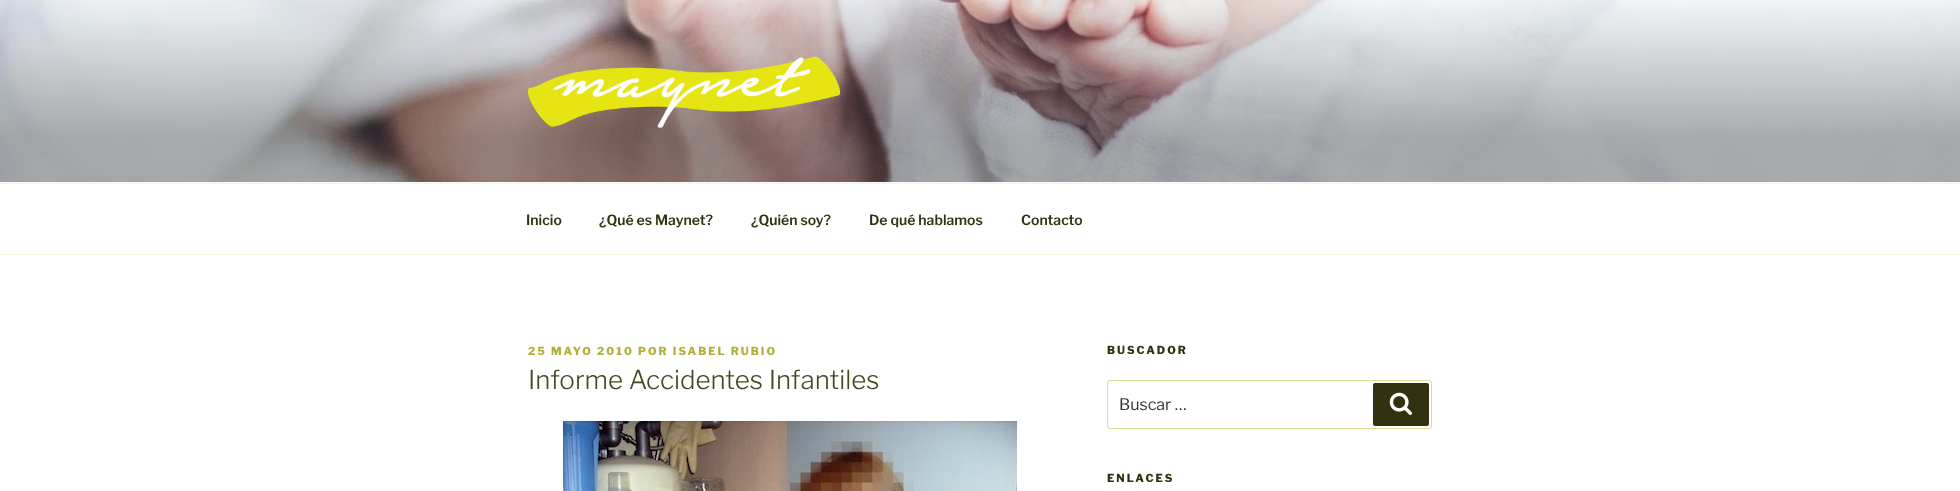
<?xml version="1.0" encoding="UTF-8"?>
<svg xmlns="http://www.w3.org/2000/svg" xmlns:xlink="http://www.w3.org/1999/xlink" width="1960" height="491">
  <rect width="100%" height="100%" fill="#ffffff" />
  <rect y="182" width="1960" height="1" fill="#fcfcf7" />
  <image x="0" y="0" width="1960" height="182" xlink:href="image1.png" />
  <image x="528" y="56" width="312" height="72" xlink:href="image2.png" />
  <rect y="183" width="1960" height="1" fill="#f6f6e4" />
  <rect y="254" width="1960" height="1" fill="#f6f6e4" />
  <image x="563" y="421" width="454" height="70" xlink:href="image3.png" />
  <rect x="1107.5" y="380.5" width="324" height="48" rx="2.5" fill="none" stroke="#dddd98" />
  <rect x="1373" y="383" width="56" height="43" rx="2" fill="#323211" />
  <image x="1389" y="392" width="23" height="23" xlink:href="image4.png" />
  <text x="526" y="225" style="font-family: 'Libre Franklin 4'; font-size: 14px; font-weight: 100; fill: #323211">Inicio</text>
  <text x="599" y="225" style="font-family: 'Libre Franklin 4'; font-size: 14px; font-weight: 100; fill: #323211">¿Qué es Maynet?</text>
  <text x="751" y="225" style="font-family: 'Libre Franklin 4'; font-size: 14px; font-weight: 100; fill: #323211">¿Quién soy?</text>
  <text x="869" y="225" style="font-family: 'Libre Franklin 4'; font-size: 14px; font-weight: 100; fill: #323211">De qué hablamos</text>
  <text x="1021" y="225" style="font-family: 'Libre Franklin 4'; font-size: 14px; font-weight: 100; fill: #323211">Contacto</text>
  <text x="528" y="355" style="font-family: Libre Franklin; font-size: 11px; font-weight: 100; letter-spacing: 2px; fill: #b0b03b">25 MAYO 2010 POR ISABEL RUBIO</text>
  <text x="528" y="389" style="font-family: 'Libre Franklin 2'; font-size: 26px; font-weight: 100; fill: #47471f">Informe Accidentes Infantiles</text>
  <text x="1107" y="354" style="font-family: Libre Franklin; font-size: 11px; font-weight: 100; letter-spacing: 2px; fill: #323211">BUSCADOR</text>
  <text x="1119" y="410" style="font-family: 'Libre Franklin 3'; font-size: 16px; font-weight: 100; fill: #333333">Buscar …</text>
  <text x="1107" y="482" style="font-family: Libre Franklin; font-size: 11px; font-weight: 100; letter-spacing: 2px; fill: #323211">ENLACES</text>
</svg>
